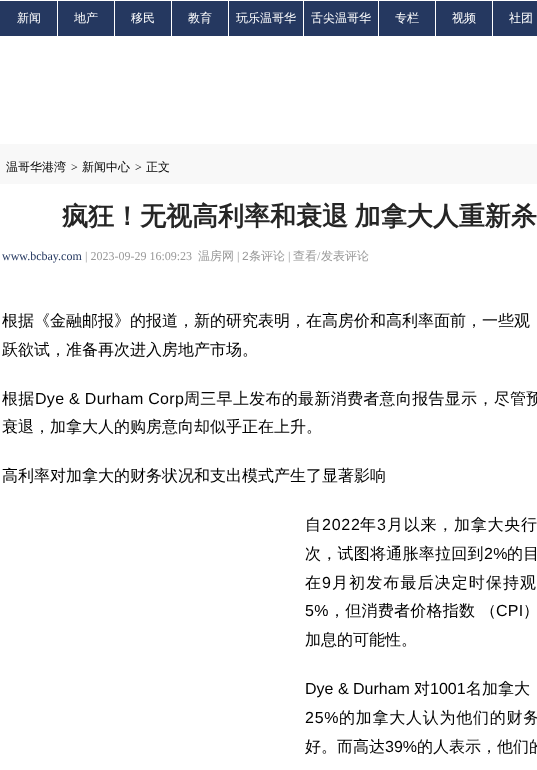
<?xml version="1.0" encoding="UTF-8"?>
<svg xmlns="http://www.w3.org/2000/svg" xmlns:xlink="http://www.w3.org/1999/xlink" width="537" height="770">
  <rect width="100%" height="100%" fill="#ffffff" />
  <rect y="1" width="57" height="35" fill="#253860" />
  <rect x="58" y="1" width="56" height="35" fill="#253860" />
  <rect x="115" y="1" width="56" height="35" fill="#253860" />
  <rect x="172" y="1" width="56" height="35" fill="#253860" />
  <rect x="229" y="1" width="74" height="35" fill="#253860" />
  <rect x="304" y="1" width="74" height="35" fill="#253860" />
  <rect x="379" y="1" width="56" height="35" fill="#253860" />
  <rect x="436" y="1" width="56" height="35" fill="#253860" />
  <rect x="493" y="1" width="44" height="35" fill="#253860" />
  <rect y="144" width="537" height="40" fill="#f8f8f8" />
  <text x="17" y="22" style="font-family: WenQuanYi Zen Hei; font-size: 12px; font-weight: 500; fill: #ffffff">新闻</text>
  <text x="74" y="22" style="font-family: WenQuanYi Zen Hei; font-size: 12px; font-weight: 500; fill: #ffffff">地产</text>
  <text x="131" y="22" style="font-family: WenQuanYi Zen Hei; font-size: 12px; font-weight: 500; fill: #ffffff">移民</text>
  <text x="188" y="22" style="font-family: WenQuanYi Zen Hei; font-size: 12px; font-weight: 500; fill: #ffffff">教育</text>
  <text x="236" y="22" style="font-family: WenQuanYi Zen Hei; font-size: 12px; font-weight: 500; fill: #ffffff">玩乐温哥华</text>
  <text x="311" y="22" style="font-family: WenQuanYi Zen Hei; font-size: 12px; font-weight: 500; fill: #ffffff">舌尖温哥华</text>
  <text x="395" y="22" style="font-family: WenQuanYi Zen Hei; font-size: 12px; font-weight: 500; fill: #ffffff">专栏</text>
  <text x="452" y="22" style="font-family: WenQuanYi Zen Hei; font-size: 12px; font-weight: 500; fill: #ffffff">视频</text>
  <text x="509" y="22" style="font-family: WenQuanYi Zen Hei; font-size: 12px; font-weight: 500; fill: #ffffff">社团</text>
  <text x="6" y="171" style="font-family: WenQuanYi Zen Hei; font-size: 12px; font-weight: 500; fill: #000000">温哥华港湾</text>
  <text x="71" y="171" style="font-family: Liberation Serif; font-size: 12px; fill: #000000">&gt;</text>
  <text x="82" y="171" style="font-family: WenQuanYi Zen Hei; font-size: 12px; font-weight: 500; fill: #000000">新闻中心</text>
  <text x="135" y="171" style="font-family: Liberation Serif; font-size: 12px; fill: #000000">&gt;</text>
  <text x="146" y="171" style="font-family: WenQuanYi Zen Hei; font-size: 12px; font-weight: 500; fill: #000000">正文</text>
  <text x="62" y="225" word-spacing="-1" style="font-family: WenQuanYi Zen Hei; font-size: 26px; font-weight: bold; fill: #252525">疯狂！无视高利率和衰退 加拿大人重新杀</text>
  <text x="2" y="260" style="font-family: Liberation Serif; font-size: 12px; fill: #253860">www.bcbay.com</text>
  <text x="85" y="260" style="font-family: Liberation Serif; font-size: 12px; fill: #999999">| 2023-09-29 16:09:23</text>
  <text x="198" y="260" style="font-family: WenQuanYi Zen Hei; font-size: 12px; font-weight: 500; fill: #999999">温房网</text>
  <text x="237" y="260" style="font-family: Liberation Serif; font-size: 12px; fill: #999999">|</text>
  <text x="242" y="260" style="font-family: Liberation Sans; font-size: 12px; fill: #999999">2</text>
  <text x="249" y="260" style="font-family: WenQuanYi Zen Hei; font-size: 12px; font-weight: 500; fill: #999999">条评论</text>
  <text x="288" y="260" style="font-family: Liberation Serif; font-size: 12px; fill: #999999">|</text>
  <text x="293" y="260" style="font-family: WenQuanYi Zen Hei; font-size: 12px; font-weight: 500; fill: #999999">查看</text>
  <text x="317" y="260" style="font-family: Liberation Serif; font-size: 12px; fill: #999999">/</text>
  <text x="321" y="260" style="font-family: WenQuanYi Zen Hei; font-size: 12px; font-weight: 500; fill: #999999">发表评论</text>
  <text x="2" y="326" style="font-family: WenQuanYi Zen Hei; font-size: 16px; font-weight: 500; fill: #000000">根据《金融邮报》的报道，新的研究表明，在高房价和高利率面前，一些观</text>
  <text x="2" y="355" style="font-family: WenQuanYi Zen Hei; font-size: 16px; font-weight: 500; fill: #000000">跃欲试，准备再次进入房地产市场。</text>
  <text x="2" y="404" style="font-family: WenQuanYi Zen Hei; font-size: 16px; font-weight: 500; letter-spacing: 0.3px; fill: #000000">根据</text>
  <text x="35" y="404" style="font-family: Liberation Sans; font-size: 16px; letter-spacing: 0.3px; fill: #000000">Dye &amp; Durham Corp</text>
  <text x="184" y="404" style="font-family: WenQuanYi Zen Hei; font-size: 16px; font-weight: 500; letter-spacing: 0.3px; fill: #000000">周三早上发布的最新消费者意向报告显示，尽管预</text>
  <text x="2" y="432" style="font-family: WenQuanYi Zen Hei; font-size: 16px; font-weight: 500; fill: #000000">衰退，加拿大人的购房意向却似乎正在上升。</text>
  <text x="2" y="481" style="font-family: WenQuanYi Zen Hei; font-size: 16px; font-weight: 500; fill: #000000">高利率对加拿大的财务状况和支出模式产生了显著影响</text>
  <text x="305" y="530" style="font-family: WenQuanYi Zen Hei; font-size: 16px; font-weight: 500; letter-spacing: 0.75px; fill: #000000">自</text>
  <text x="322" y="530" style="font-family: Liberation Sans; font-size: 16px; letter-spacing: 0.75px; fill: #000000">2022</text>
  <text x="360" y="530" style="font-family: WenQuanYi Zen Hei; font-size: 16px; font-weight: 500; letter-spacing: 0.75px; fill: #000000">年</text>
  <text x="377" y="530" style="font-family: Liberation Sans; font-size: 16px; letter-spacing: 0.75px; fill: #000000">3</text>
  <text x="387" y="530" style="font-family: WenQuanYi Zen Hei; font-size: 16px; font-weight: 500; letter-spacing: 0.75px; fill: #000000">月以来，加拿大央行</text>
  <text x="305" y="559" style="font-family: WenQuanYi Zen Hei; font-size: 16px; font-weight: 500; letter-spacing: 0.25px; fill: #000000">次，试图将通胀率拉回到</text>
  <text x="484" y="559" style="font-family: Liberation Sans; font-size: 16px; letter-spacing: 0.25px; fill: #000000">2%</text>
  <text x="507" y="559" style="font-family: WenQuanYi Zen Hei; font-size: 16px; font-weight: 500; letter-spacing: 0.25px; fill: #000000">的目</text>
  <text x="305" y="588" style="font-family: WenQuanYi Zen Hei; font-size: 16px; font-weight: 500; letter-spacing: 1.1px; fill: #000000">在</text>
  <text x="322" y="588" style="font-family: Liberation Sans; font-size: 16px; letter-spacing: 1.1px; fill: #000000">9</text>
  <text x="332" y="588" style="font-family: WenQuanYi Zen Hei; font-size: 16px; font-weight: 500; letter-spacing: 1.1px; fill: #000000">月初发布最后决定时保持观</text>
  <text x="305" y="616" style="font-family: Liberation Sans; font-size: 16px; letter-spacing: 0.25px; fill: #000000">5%</text>
  <text x="329" y="616" style="font-family: WenQuanYi Zen Hei; font-size: 16px; font-weight: 500; letter-spacing: 0.25px; fill: #000000">，但消费者价格指数 （</text>
  <text x="496" y="616" style="font-family: Liberation Sans; font-size: 16px; letter-spacing: 0.25px; fill: #000000">CPI</text>
  <text x="523" y="616" style="font-family: WenQuanYi Zen Hei; font-size: 16px; font-weight: 500; letter-spacing: 0.25px; fill: #000000">）</text>
  <text x="305" y="645" style="font-family: WenQuanYi Zen Hei; font-size: 16px; font-weight: 500; fill: #000000">加息的可能性。</text>
  <text x="305" y="694" style="font-family: Liberation Sans; font-size: 16px; fill: #000000">Dye &amp; Durham</text>
  <text x="414" y="694" style="font-family: WenQuanYi Zen Hei; font-size: 16px; font-weight: 500; fill: #000000">对</text>
  <text x="430" y="694" style="font-family: Liberation Sans; font-size: 16px; fill: #000000">1001</text>
  <text x="466" y="694" style="font-family: WenQuanYi Zen Hei; font-size: 16px; font-weight: 500; fill: #000000">名加拿大</text>
  <text x="305" y="723" style="font-family: Liberation Sans; font-size: 16px; letter-spacing: 0.75px; fill: #000000">25%</text>
  <text x="339" y="723" style="font-family: WenQuanYi Zen Hei; font-size: 16px; font-weight: 500; letter-spacing: 0.75px; fill: #000000">的加拿大人认为他们的财务</text>
  <text x="305" y="752" style="font-family: WenQuanYi Zen Hei; font-size: 16px; font-weight: 500; fill: #000000">好。而高达</text>
  <text x="385" y="752" style="font-family: Liberation Sans; font-size: 16px; fill: #000000">39%</text>
  <text x="417" y="752" style="font-family: WenQuanYi Zen Hei; font-size: 16px; font-weight: 500; fill: #000000">的人表示，他们的</text>
</svg>
